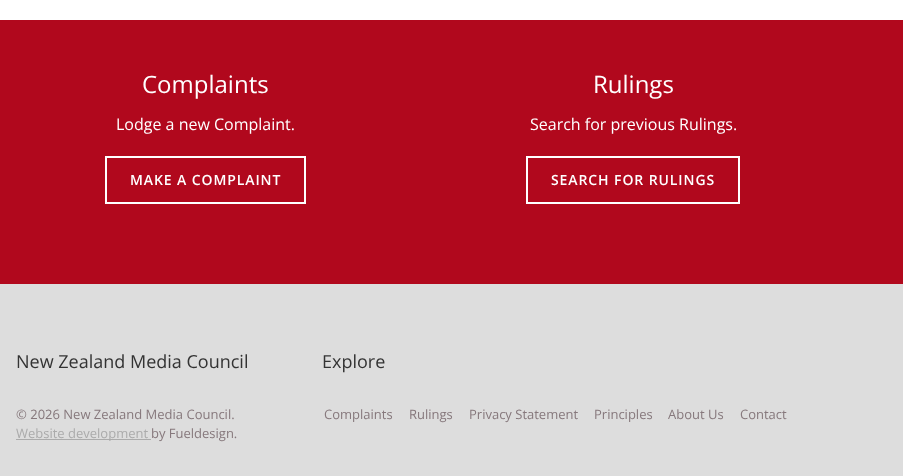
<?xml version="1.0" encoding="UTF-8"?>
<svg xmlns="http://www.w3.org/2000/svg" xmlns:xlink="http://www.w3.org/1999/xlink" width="903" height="476">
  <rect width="100%" height="100%" fill="#ffffff" />
  <rect y="20" width="903" height="264" fill="#b1081d" />
  <rect x="106" y="157" width="199" height="46" fill="none" stroke="#ffffff" stroke-width="2" />
  <rect x="527" y="157" width="212" height="46" fill="none" stroke="#ffffff" stroke-width="2" />
  <rect y="284" width="903" height="192" fill="#dddddd" />
  <rect x="16" y="439" width="135" height="1" fill="#ababab" />
  <text x="142" y="93" style="font-family: Open Sans; font-size: 24px; fill: #ffffff">Complaints</text>
  <text x="116" y="130" style="font-family: Open Sans; font-size: 16px; fill: #ffffff">Lodge a new Complaint.</text>
  <text x="130" y="185" style="font-family: Open Sans; font-size: 14px; font-weight: 600; letter-spacing: 0.9px; fill: #ffffff">MAKE A COMPLAINT</text>
  <text x="593" y="93" style="font-family: Open Sans; font-size: 24px; fill: #ffffff">Rulings</text>
  <text x="530" y="130" style="font-family: Open Sans; font-size: 16px; fill: #ffffff">Search for previous Rulings.</text>
  <text x="551" y="185" style="font-family: Open Sans; font-size: 14px; font-weight: 600; letter-spacing: 0.9px; fill: #ffffff">SEARCH FOR RULINGS</text>
  <text x="16" y="368" style="font-family: Open Sans; font-size: 18px; fill: #333333">New Zealand Media Council</text>
  <text x="16" y="419" style="font-family: Open Sans; font-size: 13px; fill: #86787c">© 2026 New Zealand Media Council.</text>
  <text x="16" y="438" style="font-family: Open Sans; font-size: 13px; fill: #ababab">Website development</text>
  <text x="151" y="438" style="font-family: Open Sans; font-size: 13px; fill: #86787c">by Fueldesign.</text>
  <text x="322" y="368" style="font-family: Open Sans; font-size: 18px; fill: #333333">Explore</text>
  <text x="324" y="419" style="font-family: Open Sans; font-size: 13px; fill: #86787c">Complaints</text>
  <text x="409" y="419" style="font-family: Open Sans; font-size: 13px; fill: #86787c">Rulings</text>
  <text x="469" y="419" style="font-family: Open Sans; font-size: 13px; fill: #86787c">Privacy Statement</text>
  <text x="594" y="419" style="font-family: Open Sans; font-size: 13px; fill: #86787c">Principles</text>
  <text x="668" y="419" style="font-family: Open Sans; font-size: 13px; fill: #86787c">About Us</text>
  <text x="740" y="419" style="font-family: Open Sans; font-size: 13px; fill: #86787c">Contact</text>
</svg>
